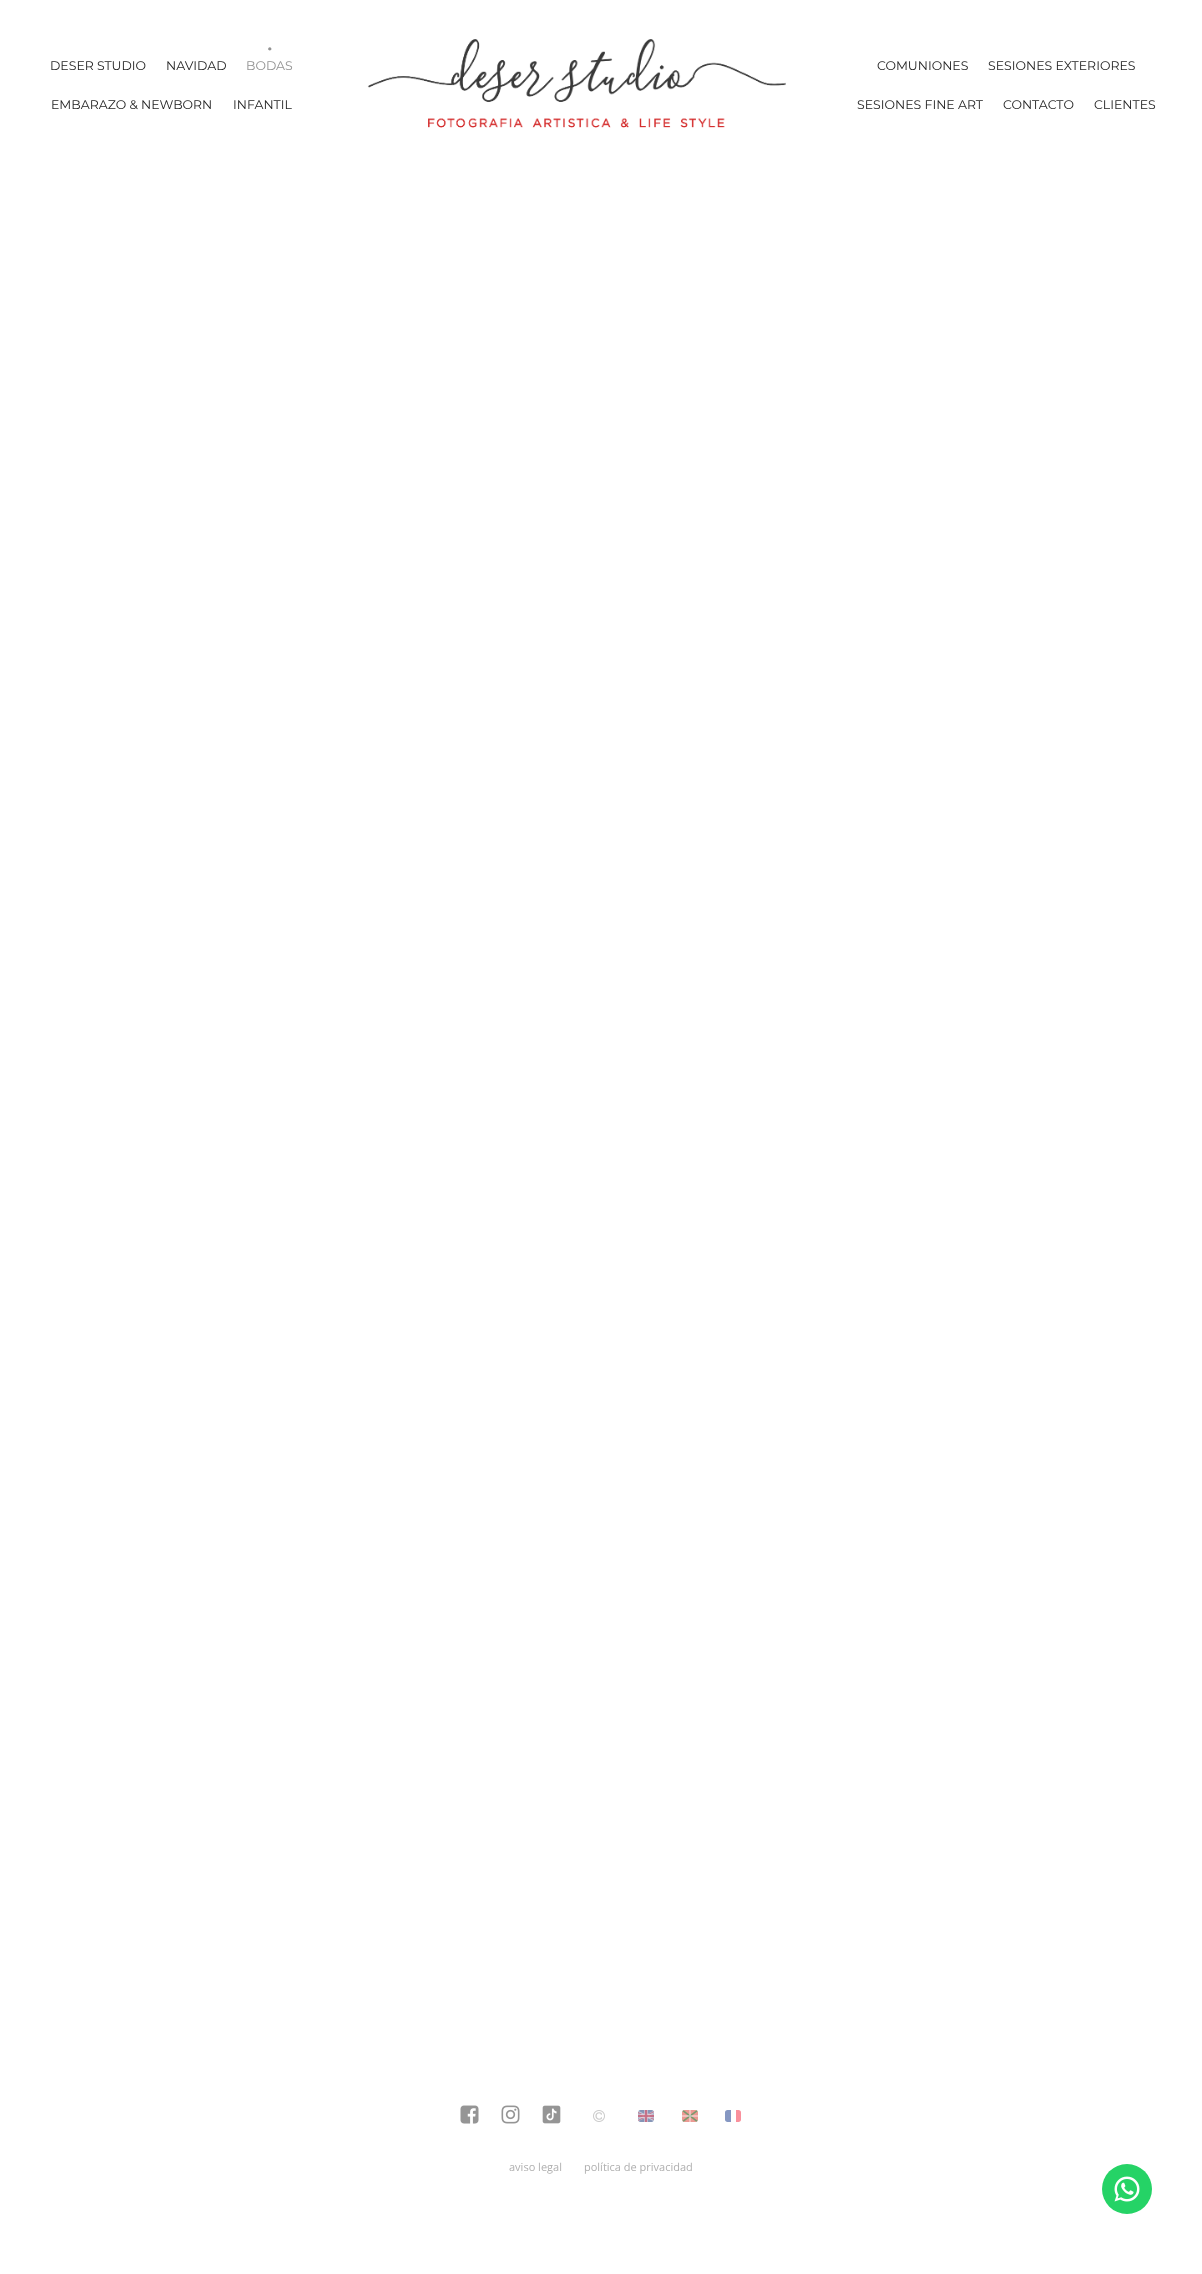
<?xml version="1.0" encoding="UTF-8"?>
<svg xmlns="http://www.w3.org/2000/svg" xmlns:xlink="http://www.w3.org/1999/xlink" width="1202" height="2274">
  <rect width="100%" height="100%" fill="#ffffff" />
  <image x="367" y="39" width="419" height="89" xlink:href="image1.png" />
  <image x="460" y="2105" width="19" height="19" xlink:href="image2.png" />
  <image x="501" y="2105" width="19" height="19" xlink:href="image3.png" />
  <image x="542" y="2105" width="19" height="19" xlink:href="image4.png" />
  <image x="593" y="2110" width="12" height="12" xlink:href="image5.png" />
  <image x="638" y="2110" width="16" height="12" xlink:href="image6.png" />
  <image x="682" y="2110" width="16" height="12" xlink:href="image7.png" />
  <path d="M 727.5 2110 h 3.5 v 12 h -3.5 c -1.5 0 -2.5 -1 -2.5 -2.5 v -7 c 0 -1.5 1 -2.5 2.5 -2.5 z" fill="#8597c2" />
  <path d="M 736 2110 h 2.5 c 1.5 0 2.5 1 2.5 2.5 v 7 c 0 1.5 -1 2.5 -2.5 2.5 h -2.5 z" fill="#f9909c" />
  <circle cx="1127" cy="2189" r="25" fill="#25d366" />
  <image x="1114" y="2176" width="26" height="26" xlink:href="image8.png" />
  <text x="50" y="70" style="font-family: Montserrat; font-size: 12.5px; fill: #242424">DESER STUDIO</text>
  <text x="166" y="70" style="font-family: Montserrat; font-size: 12.5px; fill: #242424">NAVIDAD</text>
  <text x="266" y="57" style="font-family: Montserrat; font-size: 30px; fill: #929292">·</text>
  <text x="246" y="70" style="font-family: Montserrat; font-size: 12.5px; fill: #929292">BODAS</text>
  <text x="51" y="109" style="font-family: Montserrat; font-size: 12.5px; fill: #242424">EMBARAZO &amp; NEWBORN</text>
  <text x="233" y="109" style="font-family: Montserrat; font-size: 12.5px; fill: #242424">INFANTIL</text>
  <text x="877" y="70" style="font-family: Montserrat; font-size: 12.5px; fill: #242424">COMUNIONES</text>
  <text x="988" y="70" style="font-family: Montserrat; font-size: 12.5px; fill: #242424">SESIONES EXTERIORES</text>
  <text x="857" y="109" style="font-family: Montserrat; font-size: 12.5px; fill: #242424">SESIONES FINE ART</text>
  <text x="1003" y="109" style="font-family: Montserrat; font-size: 12.5px; fill: #242424">CONTACTO</text>
  <text x="1094" y="109" style="font-family: Montserrat; font-size: 12.5px; fill: #242424">CLIENTES</text>
  <text x="509" y="2171" style="font-family: Open Sans; font-size: 11px; fill: #b0b0b0">aviso legal</text>
  <text x="584" y="2171" style="font-family: Open Sans; font-size: 11px; fill: #b0b0b0">política de privacidad</text>
</svg>
